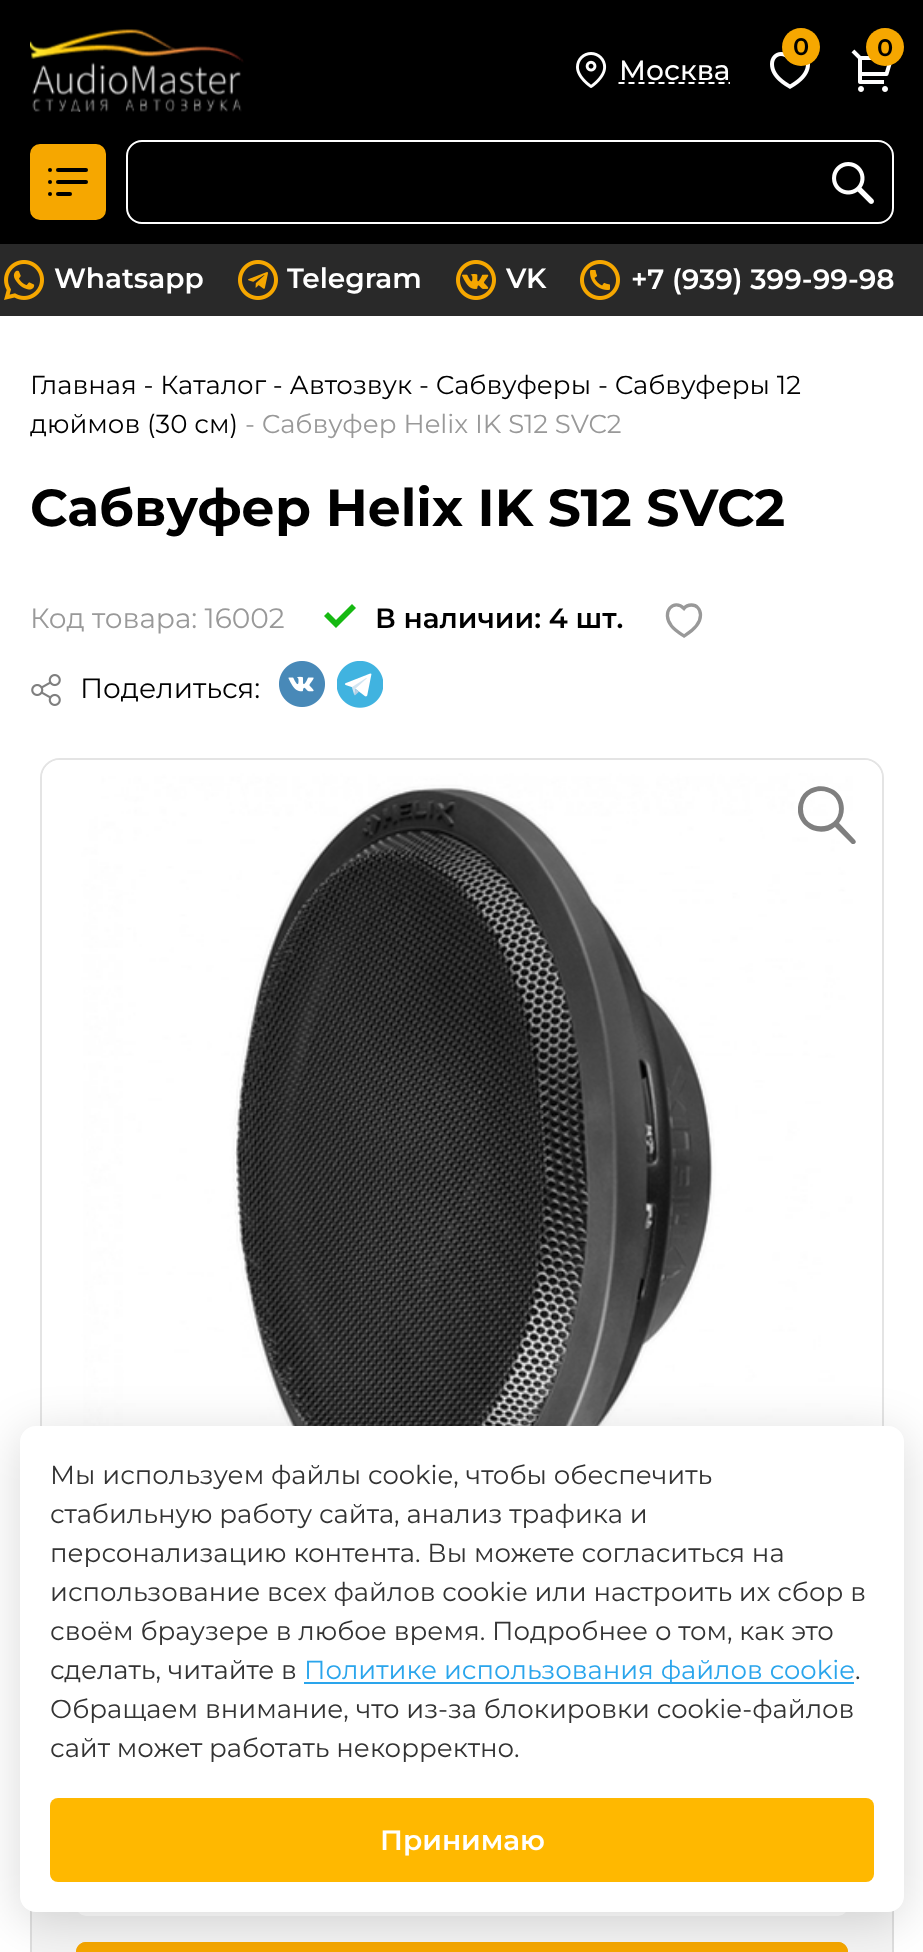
<?xml version="1.0" encoding="UTF-8"?>
<svg xmlns="http://www.w3.org/2000/svg" xmlns:xlink="http://www.w3.org/1999/xlink" width="923" height="1952">
  <defs>
    <clipPath id="clip1"><rect x="798" y="786" width="58" height="58" /></clipPath>
  </defs>
  <rect width="100%" height="100%" fill="#ffffff" />
  <rect width="923" height="244" fill="#000000" />
  <image x="30" y="29" width="214" height="83" xlink:href="image1.png" />
  <image x="770" y="52" width="40" height="37" xlink:href="image2.png" />
  <circle cx="801" cy="47" r="19" fill="#f6a700" />
  <image x="851" y="49" width="41" height="43" xlink:href="image3.png" />
  <circle cx="885" cy="47" r="19" fill="#f6a700" />
  <image x="576" y="52" width="31" height="36" xlink:href="image4.png" />
  <path d="M 618.5 83 h 111.5" fill="none" stroke="#ffffff" stroke-width="2" stroke-dasharray="6 4" />
  <rect x="31" y="145" width="74" height="74" rx="9" fill="#f6a700" stroke="#f6a700" stroke-width="2" />
  <rect x="56" y="192" width="16" height="4" rx="2" fill="#000000" />
  <rect x="56" y="180" width="32" height="4" rx="2" fill="#000000" />
  <rect x="56" y="168" width="32" height="4" rx="2" fill="#000000" />
  <circle cx="50" cy="170" r="2" fill="#000000" />
  <circle cx="50" cy="182" r="2" fill="#000000" />
  <circle cx="50" cy="194" r="2" fill="#000000" />
  <rect x="127" y="141" width="766" height="82" rx="15" fill="none" stroke="#ffffff" stroke-width="2" />
  <image x="832" y="162" width="42" height="42" xlink:href="image5.png" />
  <rect y="244" width="923" height="72" fill="#292929" />
  <image x="4" y="260" width="40" height="40" xlink:href="image6.png" />
  <image x="238" y="260" width="40" height="40" xlink:href="image7.png" />
  <image x="456" y="260" width="40" height="40" xlink:href="image8.png" />
  <image x="580" y="260" width="40" height="40" xlink:href="image9.png" />
  <path d="M 336 620 l -8 -8 l -4 4 l 12 12 l 20 -20 l -4 -4 z" fill="#16b912" />
  <path d="M 691.5 605 c 5 0 9 4 9 10 c 0 11.5 -12.5 18.5 -16.5 21 c -4.5 -3 -9 -5.5 -12.5 -10 c -11 -14 2.5 -28 12.5 -17.5 c 1.5 -2 4.5 -3.5 7.5 -3.5 z" fill="none" stroke="#999999" stroke-width="3.3" />
  <image x="31" y="674" width="30" height="32" xlink:href="image10.png" />
  <image x="279" y="661" width="46" height="46" xlink:href="image11.png" />
  <image x="337" y="661" width="46" height="47" xlink:href="image12.png" />
  <rect x="41" y="759" width="842" height="842" rx="19" fill="none" stroke="#e4e4e4" stroke-width="2" />
  <image x="42" y="760" width="840" height="666" xlink:href="image13.png" />
  <g clip-path="url(#clip1)">
    <path d="M 855 840 l -16 -17 c 8 -10 6 -26 -5 -33 c -7 -4 -15 -5 -22 -2 c -5 2 -10 6 -12 12 c -10 22 17 41 35 27 l 17 17 c 3 1 5 -2 3 -4 z m -52 -31 c 0 -24 36 -24 36 0 c 0 23 -36 23 -36 0 z" fill="#7f7f7f" />
  </g>
  <rect x="32" y="1911" width="860" height="41" fill="#f4f4f4" />
  <rect x="31" y="1711" width="862" height="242" fill="none" stroke="#dedede" stroke-width="2" />
  <rect x="76" y="1840" width="772" height="76" rx="10" fill="#ffffff" />
  <path d="M 86 1942 h 752 c 5.5 0 10 4.5 10 10 h -772 c 0 -5.5 4.5 -10 10 -10 z" fill="#f6a700" />
  <rect x="77" y="1943" width="770" height="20" rx="9" fill="none" stroke="#f6a700" stroke-width="2" />
  <rect x="20" y="1434" width="884" height="486" rx="16" fill="#000000" fill-opacity="0.15" filter="blur(24px)" />
  <rect x="20" y="1426" width="884" height="486" rx="16" fill="#ffffff" />
  <rect x="304" y="1682" width="550" height="2" fill="#2aa5ec" />
  <rect x="50" y="1798" width="824" height="84" rx="8" fill="#ffb800" />
  <text x="793" y="55" style="font-family: Montserrat; font-size: 24px; font-weight: 600; fill: #000000">0</text>
  <text x="877" y="56" style="font-family: Montserrat; font-size: 24px; font-weight: 600; fill: #000000">0</text>
  <text x="619" y="80" style="font-family: Montserrat; font-size: 28px; font-weight: 500; fill: #ffffff">Москва</text>
  <text x="54" y="288" style="font-family: Montserrat; font-size: 28px; font-weight: 600; fill: #ffffff">Whatsapp</text>
  <text x="287" y="288" style="font-family: Montserrat; font-size: 28px; font-weight: 600; fill: #ffffff">Telegram</text>
  <text x="506" y="288" style="font-family: Montserrat; font-size: 28px; font-weight: 600; fill: #ffffff">VK</text>
  <text x="631" y="289" style="font-family: Montserrat; font-size: 28px; font-weight: 600; fill: #ffffff">+7 (939) 399-99-98</text>
  <text x="30" y="394" style="font-family: Montserrat; font-size: 26px; fill: #000000">Главная - Каталог - Автозвук - Сабвуферы - Сабвуферы 12</text>
  <text x="30" y="433" style="font-family: Montserrat; font-size: 26px; fill: #000000">дюймов (30 см)</text>
  <text x="245" y="433" style="font-family: Montserrat; font-size: 26px; fill: #999999">- Сабвуфер Helix IK S12 SVC2</text>
  <text x="30" y="526" style="font-family: Montserrat; font-size: 52px; font-weight: bold; fill: #000000">Сабвуфер Helix IK S12 SVC2</text>
  <text x="30" y="628" style="font-family: Montserrat; font-size: 28px; fill: #999999">Код товара: 16002</text>
  <text x="375" y="628" style="font-family: Montserrat; font-size: 28px; font-weight: 600; fill: #000000">В наличии: 4 шт.</text>
  <text x="80" y="698" style="font-family: Montserrat; font-size: 28px; fill: #000000">Поделиться:</text>
  <text x="50" y="1484" style="font-family: Montserrat; font-size: 26px; fill: #333333">Мы используем файлы cookie, чтобы обеспечить</text>
  <text x="50" y="1523" style="font-family: Montserrat; font-size: 26px; fill: #333333">стабильную работу сайта, анализ трафика и</text>
  <text x="50" y="1562" style="font-family: Montserrat; font-size: 26px; fill: #333333">персонализацию контента. Вы можете согласиться на</text>
  <text x="50" y="1601" style="font-family: Montserrat; font-size: 26px; fill: #333333">использование всех файлов cookie или настроить их сбор в</text>
  <text x="50" y="1640" style="font-family: Montserrat; font-size: 26px; fill: #333333">своём браузере в любое время. Подробнее о том, как это</text>
  <text x="50" y="1679" style="font-family: Montserrat; font-size: 26px; fill: #333333">сделать, читайте в</text>
  <text x="304" y="1679" style="font-family: Montserrat; font-size: 26px; fill: #2aa5ec">Политике использования файлов cookie</text>
  <text x="855" y="1679" style="font-family: Montserrat; font-size: 26px; fill: #333333">.</text>
  <text x="50" y="1718" style="font-family: Montserrat; font-size: 26px; fill: #333333">Обращаем внимание, что из-за блокировки cookie-файлов</text>
  <text x="50" y="1757" style="font-family: Montserrat; font-size: 26px; fill: #333333">сайт может работать некорректно.</text>
  <text x="380" y="1850" style="font-family: Montserrat; font-size: 28px; font-weight: 600; fill: #ffffff">Принимаю</text>
</svg>
